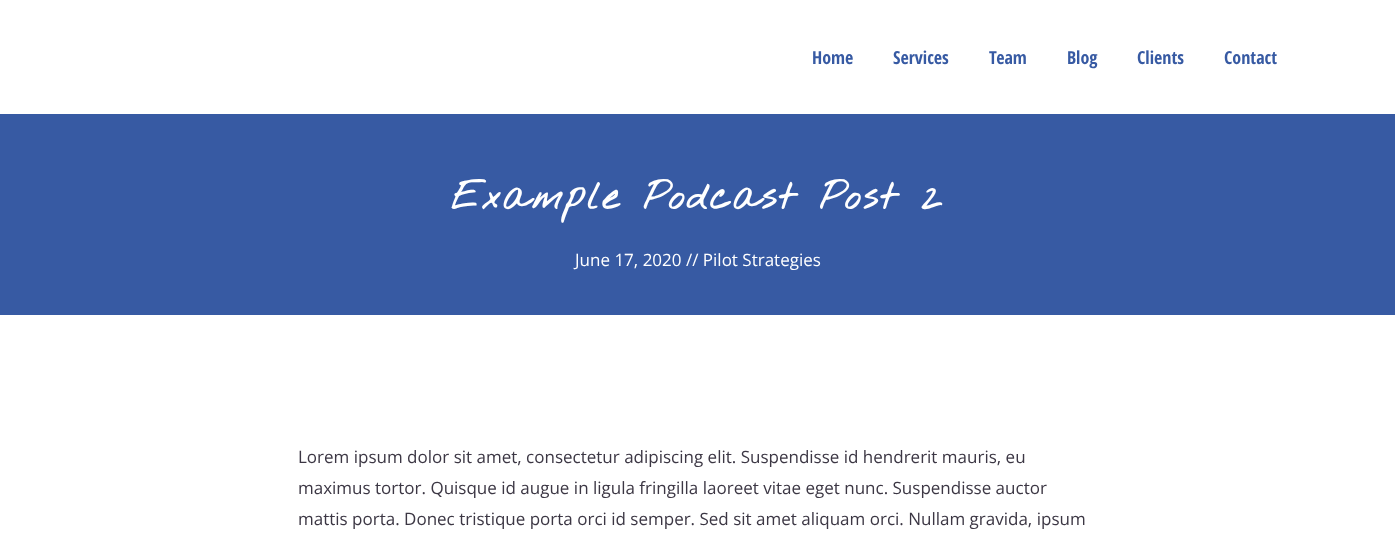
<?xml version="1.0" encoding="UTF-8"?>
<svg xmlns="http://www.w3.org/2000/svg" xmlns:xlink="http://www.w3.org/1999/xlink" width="1395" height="541">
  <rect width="100%" height="100%" fill="#ffffff" />
  <rect y="114" width="1395" height="201" fill="#375aa3" />
  <text x="812" y="64" style="font-family: Open Sans Condensed; font-size: 18px; font-weight: bold; fill: #375aa3">Home</text>
  <text x="893" y="64" style="font-family: Open Sans Condensed; font-size: 18px; font-weight: bold; fill: #375aa3">Services</text>
  <text x="989" y="64" style="font-family: Open Sans Condensed; font-size: 18px; font-weight: bold; fill: #375aa3">Team</text>
  <text x="1067" y="64" style="font-family: Open Sans Condensed; font-size: 18px; font-weight: bold; fill: #375aa3">Blog</text>
  <text x="1137" y="64" style="font-family: Open Sans Condensed; font-size: 18px; font-weight: bold; fill: #375aa3">Clients</text>
  <text x="1224" y="64" style="font-family: Open Sans Condensed; font-size: 18px; font-weight: bold; fill: #375aa3">Contact</text>
  <text x="451" y="209" style="font-family: Nothing You Could Do; font-size: 39px; font-weight: bold; letter-spacing: 2px; fill: #ffffff">Example Podcast Post 2</text>
  <text x="575" y="266" style="font-family: Open Sans; font-size: 17px; fill: #ffffff">June 17, 2020 // Pilot Strategies</text>
  <text x="298" y="463" style="font-family: Open Sans; font-size: 17px; fill: #3c3744">Lorem ipsum dolor sit amet, consectetur adipiscing elit. Suspendisse id hendrerit mauris, eu</text>
  <text x="298" y="494" style="font-family: Open Sans; font-size: 17px; fill: #3c3744">maximus tortor. Quisque id augue in ligula fringilla laoreet vitae eget nunc. Suspendisse auctor</text>
  <text x="298" y="525" style="font-family: Open Sans; font-size: 17px; fill: #3c3744">mattis porta. Donec tristique porta orci id semper. Sed sit amet aliquam orci. Nullam gravida, ipsum</text>
</svg>
